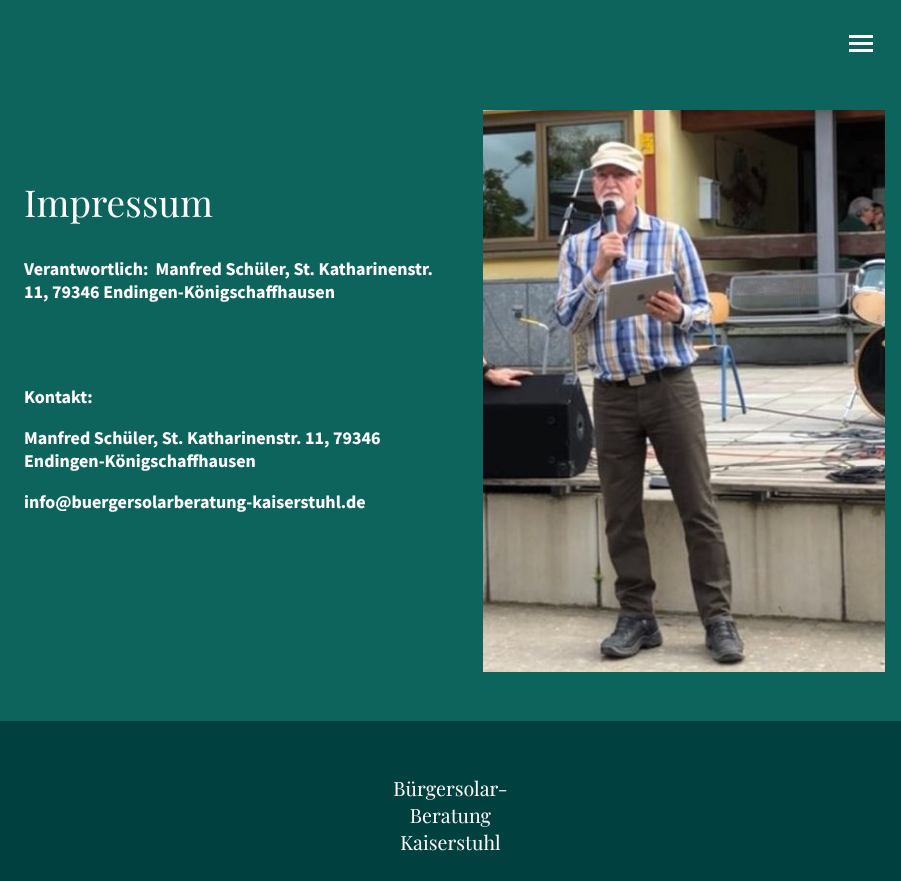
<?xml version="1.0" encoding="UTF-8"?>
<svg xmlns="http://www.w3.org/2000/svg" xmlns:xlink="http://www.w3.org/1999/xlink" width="901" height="881">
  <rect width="100%" height="100%" fill="#0c645c" />
  <rect x="849" y="35" width="24" height="3" fill="#fef9fa" />
  <rect x="849" y="42" width="24" height="3" fill="#fef9fa" />
  <rect x="849" y="49" width="24" height="3" fill="#fef9fa" />
  <image x="483" y="110" width="402" height="562" xlink:href="image1.png" />
  <rect y="721" width="901" height="160" fill="#00403e" />
  <image x="394" y="780" width="113" height="71" xlink:href="image2.png" />
  <text x="24" y="217" style="font-family: Playfair Display; font-size: 37px; fill: #fef9fa">Impressum</text>
  <text x="24" y="275" style="font-family: Source Sans Pro; font-size: 18px; font-weight: bold; fill: #fef9fa" xml:space="preserve">Verantwortlich:  Manfred Schüler, St. Katharinenstr.</text>
  <text x="24" y="298" style="font-family: Source Sans Pro; font-size: 18px; font-weight: bold; fill: #fef9fa">11, 79346 Endingen-Königschaffhausen</text>
  <text x="24" y="403" style="font-family: Source Sans Pro; font-size: 18px; font-weight: bold; fill: #fef9fa">Kontakt:</text>
  <text x="24" y="444" style="font-family: Source Sans Pro; font-size: 18px; font-weight: bold; fill: #fef9fa">Manfred Schüler, St. Katharinenstr. 11, 79346</text>
  <text x="24" y="467" style="font-family: Source Sans Pro; font-size: 18px; font-weight: bold; fill: #fef9fa">Endingen-Königschaffhausen</text>
  <text x="24" y="508" style="font-family: Source Sans Pro; font-size: 18px; font-weight: bold; fill: #fef9fa">info@buergersolarberatung-kaiserstuhl.de</text>
</svg>
